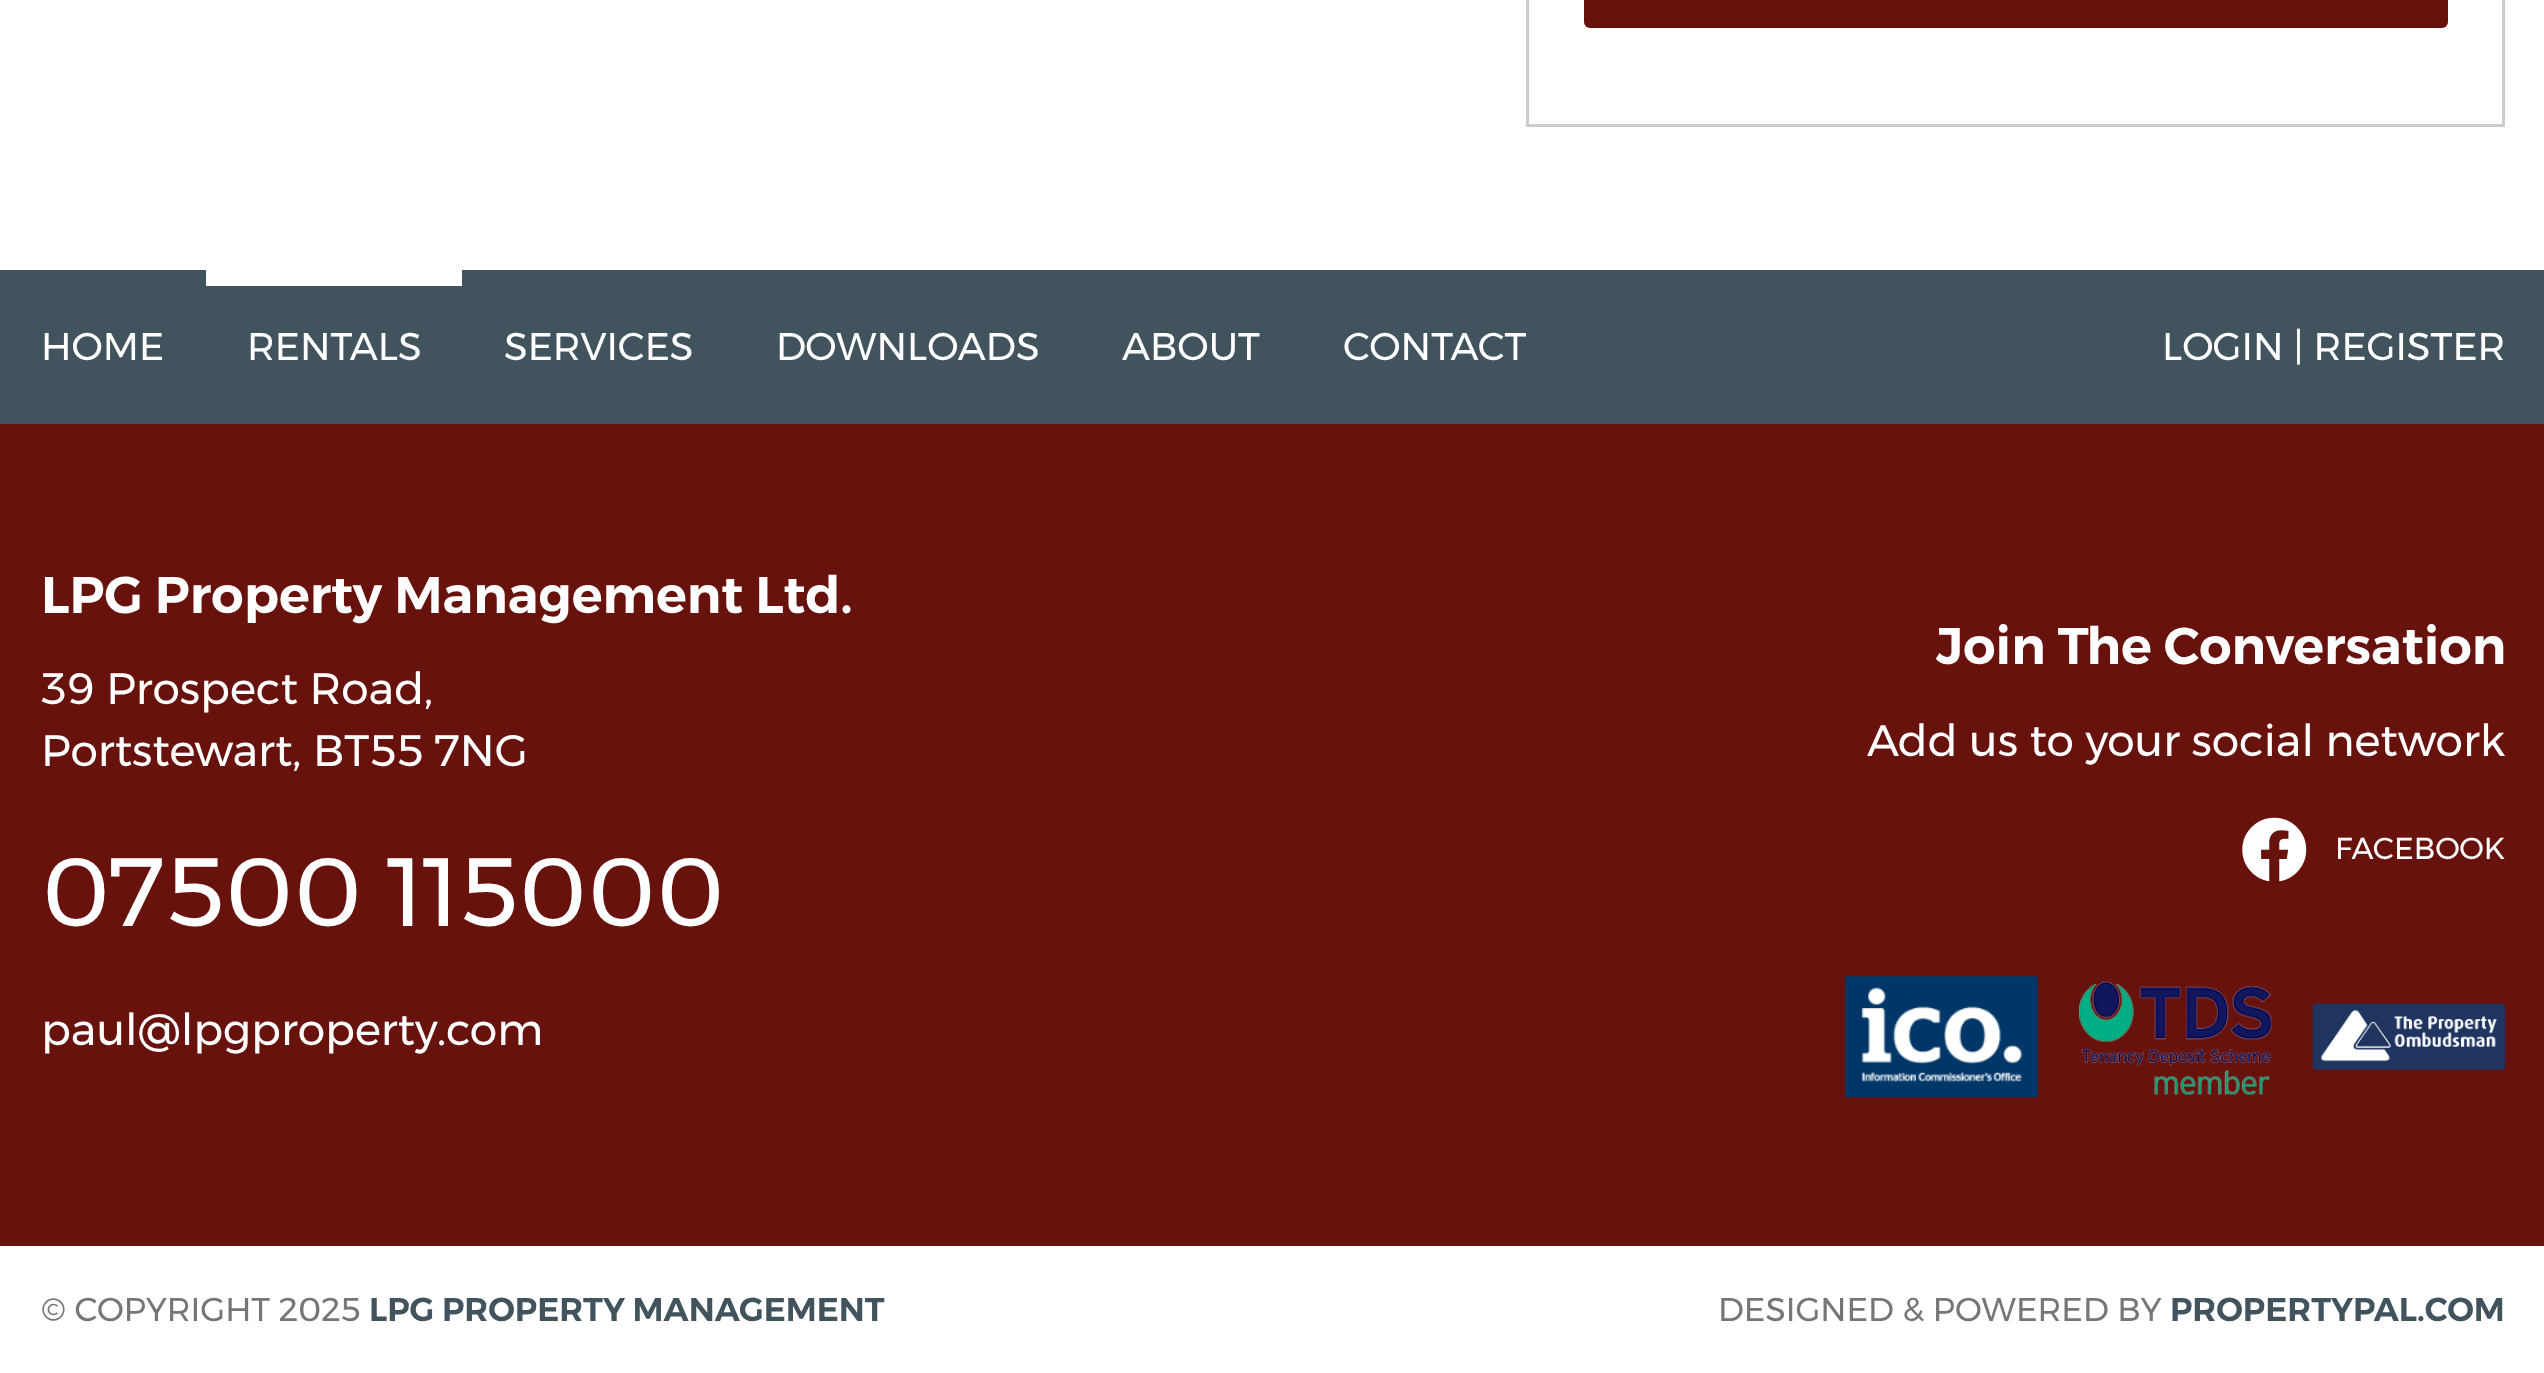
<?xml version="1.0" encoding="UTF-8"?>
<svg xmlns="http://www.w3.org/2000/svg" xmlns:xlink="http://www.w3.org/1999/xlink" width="2544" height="1373">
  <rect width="100%" height="100%" fill="#ffffff" />
  <rect x="1527.5" y="-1.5" width="976" height="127" fill="none" stroke="#cccccc" stroke-width="3" />
  <rect x="1584" y="-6" width="864" height="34" rx="6" fill="#68120d" />
  <rect y="270" width="2544" height="154" fill="#41535c" />
  <rect x="206" y="270" width="256" height="16" fill="#ffffff" />
  <rect y="424" width="2544" height="822" fill="#68120d" />
  <image x="2242" y="817" width="65" height="65" xlink:href="image1.png" />
  <image x="1845" y="976" width="193" height="122" xlink:href="image2.png" />
  <image x="2079" y="981" width="193" height="114" xlink:href="image3.png" />
  <image x="2312" y="1003" width="194" height="67" xlink:href="image4.png" />
  <text x="41" y="360" style="font-family: Montserrat; font-size: 38.5px; fill: #ffffff">HOME</text>
  <text x="247" y="360" style="font-family: Montserrat; font-size: 38.5px; fill: #ffffff">RENTALS</text>
  <text x="504" y="360" style="font-family: Montserrat; font-size: 38.5px; fill: #ffffff">SERVICES</text>
  <text x="776" y="360" style="font-family: Montserrat; font-size: 38.5px; fill: #ffffff">DOWNLOADS</text>
  <text x="1122" y="360" style="font-family: Montserrat; font-size: 38.5px; fill: #ffffff">ABOUT</text>
  <text x="1343" y="360" style="font-family: Montserrat; font-size: 38.5px; fill: #ffffff">CONTACT</text>
  <text x="2162" y="360" style="font-family: Montserrat; font-size: 38.5px; fill: #ffffff">LOGIN | REGISTER</text>
  <text x="41" y="613" style="font-family: Montserrat; font-size: 51.5px; font-weight: 600; fill: #ffffff">LPG Property Management Ltd.</text>
  <text x="41" y="704" style="font-family: Montserrat; font-size: 44px; fill: #ffffff">39 Prospect Road,</text>
  <text x="41" y="766" style="font-family: Montserrat; font-size: 44px; fill: #ffffff">Portstewart, BT55 7NG</text>
  <text x="41" y="926" style="font-family: Montserrat; font-size: 96.75px; fill: #ffffff">07500 115000</text>
  <text x="41" y="1045" style="font-family: Montserrat; font-size: 44px; fill: #ffffff">paul@lpgproperty</text>
  <text x="437" y="1045" style="font-family: Montserrat; font-size: 44px; fill: #ffffff">.com</text>
  <text x="1936" y="664" style="font-family: Montserrat; font-size: 51.5px; font-weight: 600; fill: #ffffff">Join The Conversation</text>
  <text x="1867" y="756" style="font-family: Montserrat; font-size: 44px; fill: #ffffff">Add us to your social network</text>
  <text x="2335" y="859" style="font-family: Montserrat; font-size: 30.25px; fill: #ffffff">FACEBOOK</text>
  <text x="41" y="1321" style="font-family: Montserrat; font-size: 33px; fill: #767676">© COPYRIGHT 2025</text>
  <text x="369" y="1321" style="font-family: Montserrat; font-size: 33px; font-weight: 600; fill: #41535c">LPG PROPERTY MANAGEMENT</text>
  <text x="1718" y="1321" style="font-family: Montserrat; font-size: 33px; fill: #767676">DESIGNED &amp; POWERED BY</text>
  <text x="2170" y="1321" style="font-family: Montserrat; font-size: 33px; font-weight: 600; fill: #41535c">PROPERTYPAL.COM</text>
</svg>
